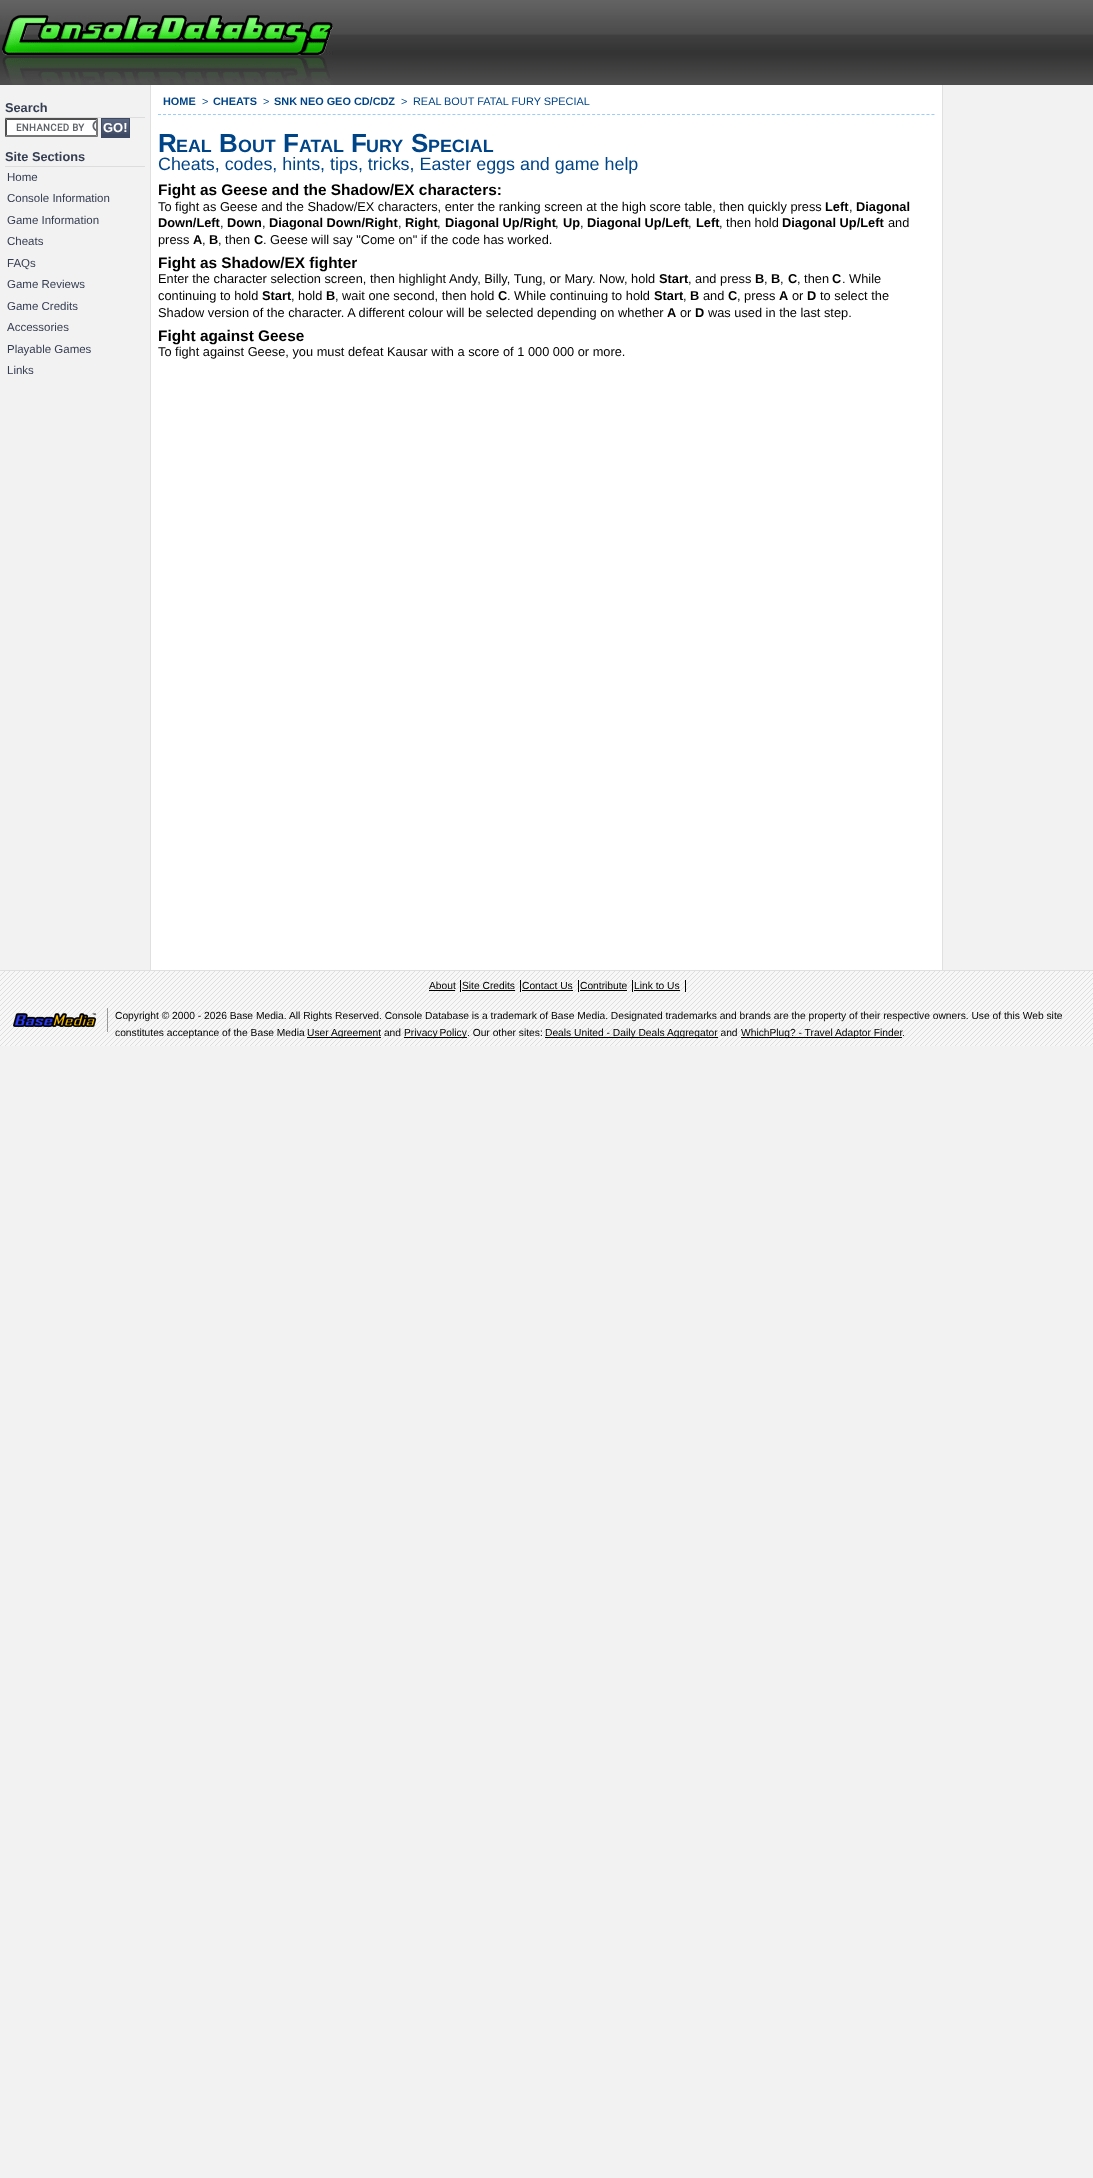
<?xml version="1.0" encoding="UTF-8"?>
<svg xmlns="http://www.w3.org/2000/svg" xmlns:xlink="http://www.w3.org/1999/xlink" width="1093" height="2178">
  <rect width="100%" height="100%" fill="#f2f2f2" />
  <image x="0" y="0" width="1093" height="85" xlink:href="image1.png" />
  <image x="2" y="15" width="331" height="70" xlink:href="image2.png" />
  <rect x="5" y="117" width="140" height="1" fill="#dddddd" />
  <rect x="5" y="118" width="93" height="19" fill="#ffffff" />
  <image x="16" y="120" width="80" height="11" xlink:href="image3.png" />
  <path d="M 5 118 h 93 l -2 2 h -89 z" fill="#4f4f4f" />
  <path d="M 98 118 v 19 l -2 -2 v -15 z" fill="#767676" />
  <path d="M 98 137 h -93 l 2 -2 h 89 z" fill="#767676" />
  <path d="M 5 137 v -19 l 2 2 v 15 z" fill="#4f4f4f" />
  <rect x="102" y="134" width="27" height="3" fill="#3e4a64" />
  <image x="102" y="119" width="27" height="15" xlink:href="image4.png" />
  <rect x="101.5" y="118.5" width="28" height="19" fill="none" stroke="#3e4a64" />
  <rect x="5" y="166" width="140" height="1" fill="#dddddd" />
  <rect x="151" y="85" width="791" height="885" fill="#ffffff" />
  <rect x="942" y="85" width="1" height="885" fill="#e0e0e0" />
  <rect x="150" y="85" width="1" height="885" fill="#e0e0e0" />
  <path d="M 158 114.5 h 777" fill="none" stroke="#99ccff" stroke-dasharray="3 1.99" />
  <image x="0" y="971" width="1093" height="75" xlink:href="image5.png" />
  <rect y="970" width="1093" height="1" fill="#e0e0e0" />
  <rect x="460" y="980" width="1" height="12" fill="#000000" />
  <rect x="429" y="990" width="26" height="1" fill="#000000" />
  <rect x="520" y="980" width="1" height="12" fill="#000000" />
  <rect x="462" y="990" width="53" height="1" fill="#000000" />
  <rect x="578" y="980" width="1" height="12" fill="#000000" />
  <rect x="522" y="990" width="51" height="1" fill="#000000" />
  <rect x="632" y="980" width="1" height="12" fill="#000000" />
  <rect x="580" y="990" width="47" height="1" fill="#000000" />
  <rect x="685" y="980" width="1" height="12" fill="#000000" />
  <rect x="634" y="990" width="46" height="1" fill="#000000" />
  <rect x="107" y="1008" width="1" height="24" fill="#999999" />
  <image x="13" y="1013" width="83" height="14" xlink:href="image6.png" />
  <rect x="307" y="1037" width="74" height="1" fill="#000000" />
  <rect x="404" y="1037" width="63" height="1" fill="#000000" />
  <rect x="545" y="1037" width="173" height="1" fill="#000000" />
  <rect x="741" y="1037" width="161" height="1" fill="#000000" />
  <text x="5" y="112" style="font-family: Liberation Sans; font-size: 12.75px; font-weight: bold; fill: #353d51">Search</text>
  <text x="103" y="132" style="font-family: Liberation Sans; font-size: 13px; font-weight: bold; fill: #ffffff">GO!</text>
  <text x="5" y="161" style="font-family: Liberation Sans; font-size: 12.75px; font-weight: bold; fill: #353d51">Site Sections</text>
  <text x="7" y="181" style="font-family: Liberation Sans; font-size: 11.5px; fill: #353d51">Home</text>
  <text x="7" y="202" style="font-family: Liberation Sans; font-size: 11.5px; fill: #353d51">Console Information</text>
  <text x="7" y="224" style="font-family: Liberation Sans; font-size: 11.5px; fill: #353d51">Game Information</text>
  <text x="7" y="245" style="font-family: Liberation Sans; font-size: 11.5px; fill: #353d51">Cheats</text>
  <text x="7" y="267" style="font-family: Liberation Sans; font-size: 11.5px; fill: #353d51">FAQs</text>
  <text x="7" y="288" style="font-family: Liberation Sans; font-size: 11.5px; fill: #353d51">Game Reviews</text>
  <text x="7" y="310" style="font-family: Liberation Sans; font-size: 11.5px; fill: #353d51">Game Credits</text>
  <text x="7" y="331" style="font-family: Liberation Sans; font-size: 11.5px; fill: #353d51">Accessories</text>
  <text x="7" y="353" style="font-family: Liberation Sans; font-size: 11.5px; fill: #353d51">Playable Games</text>
  <text x="7" y="374" style="font-family: Liberation Sans; font-size: 11.5px; fill: #353d51">Links</text>
  <text x="163" y="105" style="font-family: Liberation Sans; font-size: 10.9px; font-weight: bold; fill: #004488">HOME</text>
  <text x="202" y="105" style="font-family: Liberation Sans; font-size: 10.9px; fill: #004488">&gt;</text>
  <text x="213" y="105" style="font-family: Liberation Sans; font-size: 10.9px; font-weight: bold; fill: #004488">CHEATS</text>
  <text x="263" y="105" style="font-family: Liberation Sans; font-size: 10.9px; fill: #004488">&gt;</text>
  <text x="274" y="105" style="font-family: Liberation Sans; font-size: 10.9px; font-weight: bold; fill: #004488">SNK NEO GEO CD/CDZ</text>
  <text x="401" y="105" style="font-family: Liberation Sans; font-size: 10.9px; fill: #004488">&gt;</text>
  <text x="413" y="105" style="font-family: Liberation Sans; font-size: 10.9px; fill: #004488">REAL BOUT FATAL FURY SPECIAL</text>
  <text x="158" y="152" style="font-family: Liberation Sans; font-size: 26px; font-weight: bold; fill: #004488">R</text>
  <text x="176" y="152" style="font-family: Liberation Sans; font-size: 17.9px; font-weight: bold; fill: #004488">EAL</text>
  <text x="219" y="152" style="font-family: Liberation Sans; font-size: 26px; font-weight: bold; fill: #004488">B</text>
  <text x="238" y="152" style="font-family: Liberation Sans; font-size: 17.9px; font-weight: bold; fill: #004488">OUT</text>
  <text x="283" y="152" style="font-family: Liberation Sans; font-size: 26px; font-weight: bold; fill: #004488">F</text>
  <text x="299" y="152" style="font-family: Liberation Sans; font-size: 17.9px; font-weight: bold; fill: #004488">ATAL</text>
  <text x="351" y="152" style="font-family: Liberation Sans; font-size: 26px; font-weight: bold; fill: #004488">F</text>
  <text x="366" y="152" style="font-family: Liberation Sans; font-size: 17.9px; font-weight: bold; fill: #004488">URY</text>
  <text x="411" y="152" style="font-family: Liberation Sans; font-size: 26px; font-weight: bold; fill: #004488">S</text>
  <text x="428" y="152" style="font-family: Liberation Sans; font-size: 17.9px; font-weight: bold; fill: #004488">PECIAL</text>
  <text x="158" y="170" style="font-family: Liberation Sans; font-size: 17.9px; fill: #004488">Cheats, codes, hints, tips, tricks, Easter eggs and game help</text>
  <text x="158" y="195" style="font-family: Liberation Sans; font-size: 15.4px; font-weight: bold; fill: #000000">Fight as Geese and the Shadow/EX characters:</text>
  <text x="158" y="211" style="font-family: Liberation Sans; font-size: 12.8px; fill: #000000">To fight as Geese and the Shadow/EX characters, enter the ranking screen at the high score table, then quickly press</text>
  <text x="825" y="211" style="font-family: Liberation Sans; font-size: 12.8px; font-weight: bold; fill: #000000">Left</text>
  <text x="849" y="211" style="font-family: Liberation Sans; font-size: 12.8px; fill: #000000">,</text>
  <text x="856" y="211" style="font-family: Liberation Sans; font-size: 12.8px; font-weight: bold; fill: #000000">Diagonal</text>
  <text x="158" y="227" style="font-family: Liberation Sans; font-size: 12.8px; font-weight: bold; fill: #000000">Down/Left</text>
  <text x="220" y="227" style="font-family: Liberation Sans; font-size: 12.8px; fill: #000000">,</text>
  <text x="227" y="227" style="font-family: Liberation Sans; font-size: 12.8px; font-weight: bold; fill: #000000">Down</text>
  <text x="262" y="227" style="font-family: Liberation Sans; font-size: 12.8px; fill: #000000">,</text>
  <text x="269" y="227" style="font-family: Liberation Sans; font-size: 12.8px; font-weight: bold; fill: #000000">Diagonal Down/Right</text>
  <text x="398" y="227" style="font-family: Liberation Sans; font-size: 12.8px; fill: #000000">,</text>
  <text x="405" y="227" style="font-family: Liberation Sans; font-size: 12.8px; font-weight: bold; fill: #000000">Right</text>
  <text x="437" y="227" style="font-family: Liberation Sans; font-size: 12.8px; fill: #000000">,</text>
  <text x="445" y="227" style="font-family: Liberation Sans; font-size: 12.8px; font-weight: bold; fill: #000000">Diagonal Up/Right</text>
  <text x="555" y="227" style="font-family: Liberation Sans; font-size: 12.8px; fill: #000000">,</text>
  <text x="563" y="227" style="font-family: Liberation Sans; font-size: 12.8px; font-weight: bold; fill: #000000">Up</text>
  <text x="580" y="227" style="font-family: Liberation Sans; font-size: 12.8px; fill: #000000">,</text>
  <text x="587" y="227" style="font-family: Liberation Sans; font-size: 12.8px; font-weight: bold; fill: #000000">Diagonal Up/Left</text>
  <text x="688" y="227" style="font-family: Liberation Sans; font-size: 12.8px; fill: #000000">,</text>
  <text x="696" y="227" style="font-family: Liberation Sans; font-size: 12.8px; font-weight: bold; fill: #000000">Left</text>
  <text x="719" y="227" style="font-family: Liberation Sans; font-size: 12.8px; fill: #000000">, then hold</text>
  <text x="782" y="227" style="font-family: Liberation Sans; font-size: 12.8px; font-weight: bold; fill: #000000">Diagonal Up/Left</text>
  <text x="888" y="227" style="font-family: Liberation Sans; font-size: 12.8px; fill: #000000">and</text>
  <text x="158" y="244" style="font-family: Liberation Sans; font-size: 12.8px; fill: #000000">press</text>
  <text x="193" y="244" style="font-family: Liberation Sans; font-size: 12.8px; font-weight: bold; fill: #000000">A</text>
  <text x="202" y="244" style="font-family: Liberation Sans; font-size: 12.8px; fill: #000000">,</text>
  <text x="209" y="244" style="font-family: Liberation Sans; font-size: 12.8px; font-weight: bold; fill: #000000">B</text>
  <text x="218" y="244" style="font-family: Liberation Sans; font-size: 12.8px; fill: #000000">, then</text>
  <text x="254" y="244" style="font-family: Liberation Sans; font-size: 12.8px; font-weight: bold; fill: #000000">C</text>
  <text x="263" y="244" style="font-family: Liberation Sans; font-size: 12.8px; fill: #000000">. Geese will say "Come on" if the code has worked.</text>
  <text x="158" y="268" style="font-family: Liberation Sans; font-size: 15.4px; font-weight: bold; fill: #000000">Fight as Shadow/EX fighter</text>
  <text x="158" y="283" style="font-family: Liberation Sans; font-size: 12.8px; fill: #000000">Enter the character selection screen, then highlight Andy, Billy, Tung, or Mary. Now, hold</text>
  <text x="659" y="283" style="font-family: Liberation Sans; font-size: 12.8px; font-weight: bold; fill: #000000">Start</text>
  <text x="688" y="283" style="font-family: Liberation Sans; font-size: 12.8px; fill: #000000">, and press</text>
  <text x="755" y="283" style="font-family: Liberation Sans; font-size: 12.8px; font-weight: bold; fill: #000000">B</text>
  <text x="764" y="283" style="font-family: Liberation Sans; font-size: 12.8px; fill: #000000">,</text>
  <text x="771" y="283" style="font-family: Liberation Sans; font-size: 12.8px; font-weight: bold; fill: #000000">B</text>
  <text x="780" y="283" style="font-family: Liberation Sans; font-size: 12.8px; fill: #000000">,</text>
  <text x="788" y="283" style="font-family: Liberation Sans; font-size: 12.8px; font-weight: bold; fill: #000000">C</text>
  <text x="797" y="283" style="font-family: Liberation Sans; font-size: 12.8px; fill: #000000">, then</text>
  <text x="832" y="283" style="font-family: Liberation Sans; font-size: 12.8px; font-weight: bold; fill: #000000">C</text>
  <text x="842" y="283" style="font-family: Liberation Sans; font-size: 12.8px; fill: #000000">. While</text>
  <text x="158" y="300" style="font-family: Liberation Sans; font-size: 12.8px; fill: #000000">continuing to hold</text>
  <text x="262" y="300" style="font-family: Liberation Sans; font-size: 12.8px; font-weight: bold; fill: #000000">Start</text>
  <text x="291" y="300" style="font-family: Liberation Sans; font-size: 12.8px; fill: #000000">, hold</text>
  <text x="326" y="300" style="font-family: Liberation Sans; font-size: 12.8px; font-weight: bold; fill: #000000">B</text>
  <text x="335" y="300" style="font-family: Liberation Sans; font-size: 12.8px; fill: #000000">, wait one second, then hold</text>
  <text x="498" y="300" style="font-family: Liberation Sans; font-size: 12.8px; font-weight: bold; fill: #000000">C</text>
  <text x="507" y="300" style="font-family: Liberation Sans; font-size: 12.8px; fill: #000000">. While continuing to hold</text>
  <text x="654" y="300" style="font-family: Liberation Sans; font-size: 12.8px; font-weight: bold; fill: #000000">Start</text>
  <text x="683" y="300" style="font-family: Liberation Sans; font-size: 12.8px; fill: #000000">,</text>
  <text x="690" y="300" style="font-family: Liberation Sans; font-size: 12.8px; font-weight: bold; fill: #000000">B</text>
  <text x="703" y="300" style="font-family: Liberation Sans; font-size: 12.8px; fill: #000000">and</text>
  <text x="728" y="300" style="font-family: Liberation Sans; font-size: 12.8px; font-weight: bold; fill: #000000">C</text>
  <text x="737" y="300" style="font-family: Liberation Sans; font-size: 12.8px; fill: #000000">, press</text>
  <text x="779" y="300" style="font-family: Liberation Sans; font-size: 12.8px; font-weight: bold; fill: #000000">A</text>
  <text x="792" y="300" style="font-family: Liberation Sans; font-size: 12.8px; fill: #000000">or</text>
  <text x="807" y="300" style="font-family: Liberation Sans; font-size: 12.8px; font-weight: bold; fill: #000000">D</text>
  <text x="820" y="300" style="font-family: Liberation Sans; font-size: 12.8px; fill: #000000">to select the</text>
  <text x="158" y="317" style="font-family: Liberation Sans; font-size: 12.8px; fill: #000000">Shadow version of the character. A different colour will be selected depending on whether</text>
  <text x="667" y="317" style="font-family: Liberation Sans; font-size: 12.8px; font-weight: bold; fill: #000000">A</text>
  <text x="680" y="317" style="font-family: Liberation Sans; font-size: 12.8px; fill: #000000">or</text>
  <text x="695" y="317" style="font-family: Liberation Sans; font-size: 12.8px; font-weight: bold; fill: #000000">D</text>
  <text x="708" y="317" style="font-family: Liberation Sans; font-size: 12.8px; fill: #000000">was used in the last step.</text>
  <text x="158" y="341" style="font-family: Liberation Sans; font-size: 15.4px; font-weight: bold; fill: #000000">Fight against Geese</text>
  <text x="158" y="356" style="font-family: Liberation Sans; font-size: 12.8px; fill: #000000">To fight against Geese, you must defeat Kausar with a score of 1 000 000 or more.</text>
  <text x="429" y="989" style="font-family: Liberation Sans; font-size: 10.25px; fill: #000000">About</text>
  <text x="462" y="989" style="font-family: Liberation Sans; font-size: 10.25px; fill: #000000">Site Credits</text>
  <text x="522" y="989" style="font-family: Liberation Sans; font-size: 10.25px; fill: #000000">Contact Us</text>
  <text x="580" y="989" style="font-family: Liberation Sans; font-size: 10.25px; fill: #000000">Contribute</text>
  <text x="634" y="989" style="font-family: Liberation Sans; font-size: 10.25px; fill: #000000">Link to Us</text>
  <text x="115" y="1019" style="font-family: Liberation Sans; font-size: 10.25px; fill: #000000">Copyright © 2000 - 2026 Base Media. All Rights Reserved. Console Database is a trademark of Base Media. Designated trademarks and brands are the property of their respective owners. Use of this Web site</text>
  <text x="115" y="1036" style="font-family: Liberation Sans; font-size: 10.25px; fill: #000000">constitutes acceptance of the Base Media</text>
  <text x="307" y="1036" style="font-family: Liberation Sans; font-size: 10.25px; fill: #000000">User Agreement and</text>
  <text x="404" y="1036" word-spacing="-1" style="font-family: Liberation Sans; font-size: 10.25px; fill: #000000">Privacy Policy</text>
  <text x="467" y="1036" style="font-family: Liberation Sans; font-size: 10.25px; fill: #000000">. Our other sites:</text>
  <text x="545" y="1036" style="font-family: Liberation Sans; font-size: 10.25px; fill: #000000">Deals United - Daily Deals Aggregator and</text>
  <text x="741" y="1036" style="font-family: Liberation Sans; font-size: 10.25px; fill: #000000">WhichPlug? - Travel Adaptor Finder</text>
  <text x="902" y="1036" style="font-family: Liberation Sans; font-size: 10.25px; fill: #000000">.</text>
</svg>
